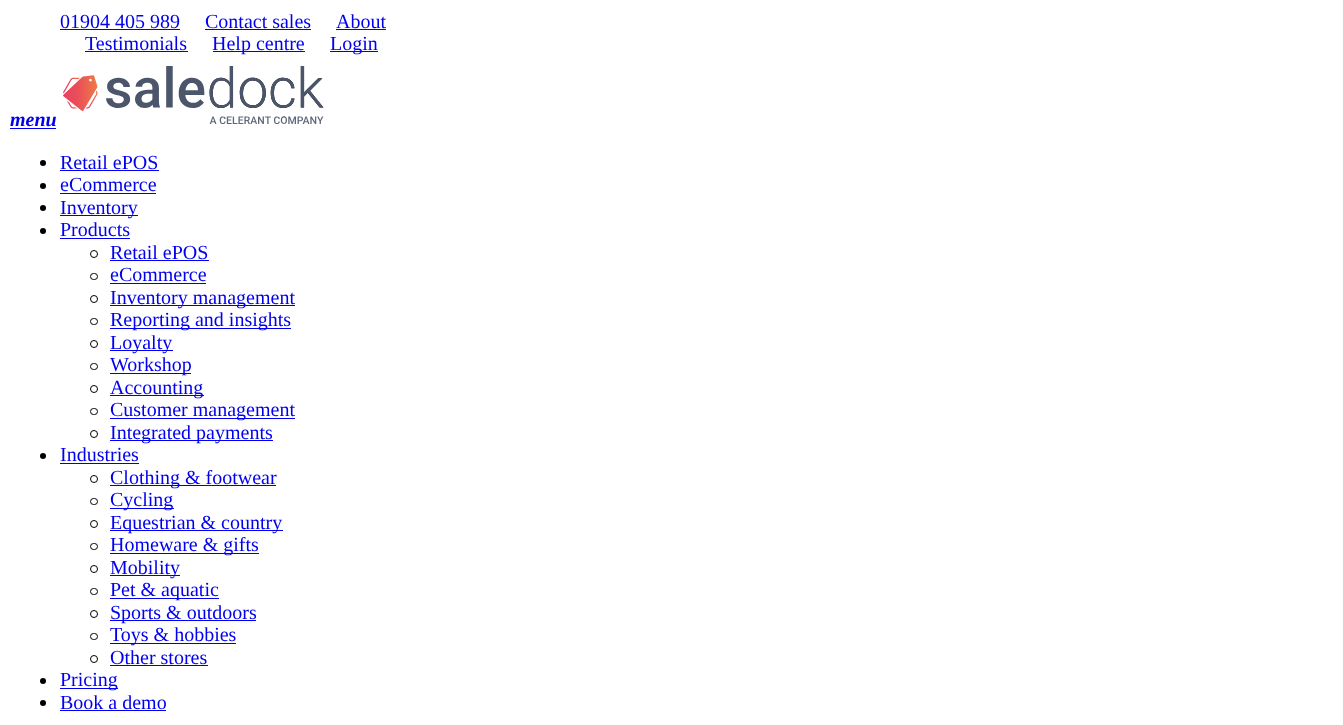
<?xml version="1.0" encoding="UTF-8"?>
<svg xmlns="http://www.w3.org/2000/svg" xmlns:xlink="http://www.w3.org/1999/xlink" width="1343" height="725">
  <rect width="100%" height="100%" fill="#ffffff" />
  <rect x="60" y="29" width="120" height="1" fill="#0000ee" />
  <rect x="205" y="29" width="106" height="1" fill="#0000ee" />
  <rect x="336" y="29" width="50" height="1" fill="#0000ee" />
  <rect x="85" y="51" width="103" height="1" fill="#0000ee" />
  <rect x="213" y="51" width="92" height="1" fill="#0000ee" />
  <rect x="330" y="51" width="48" height="1" fill="#0000ee" />
  <rect x="10" y="128" width="46" height="1" fill="#0000ee" />
  <image x="63" y="66" width="261" height="58" xlink:href="image1.png" />
  <circle cx="43" cy="163" r="3" fill="#000000" />
  <rect x="60" y="170" width="99" height="1" fill="#0000ee" />
  <circle cx="43" cy="186" r="3" fill="#000000" />
  <rect x="60" y="193" width="96" height="1" fill="#0000ee" />
  <circle cx="43" cy="208" r="3" fill="#000000" />
  <rect x="60" y="215" width="78" height="1" fill="#0000ee" />
  <circle cx="43" cy="231" r="3" fill="#000000" />
  <rect x="60" y="238" width="70" height="1" fill="#0000ee" />
  <circle cx="94" cy="254" r="3.5" fill="none" stroke="#000000" />
  <rect x="110" y="260" width="99" height="1" fill="#0000ee" />
  <rect x="90.5" y="273.5" width="7" height="6" rx="3" fill="none" stroke="#000000" />
  <rect x="110" y="283" width="96" height="1" fill="#0000ee" />
  <circle cx="94" cy="299" r="3.5" fill="none" stroke="#000000" />
  <rect x="110" y="305" width="185" height="1" fill="#0000ee" />
  <rect x="90.5" y="318.5" width="7" height="6" rx="3" fill="none" stroke="#000000" />
  <rect x="110" y="328" width="181" height="1" fill="#0000ee" />
  <circle cx="94" cy="344" r="3.5" fill="none" stroke="#000000" />
  <rect x="110" y="350" width="63" height="1" fill="#0000ee" />
  <rect x="90.5" y="363.5" width="7" height="6" rx="3" fill="none" stroke="#000000" />
  <rect x="110" y="373" width="81" height="1" fill="#0000ee" />
  <circle cx="94" cy="389" r="3.5" fill="none" stroke="#000000" />
  <rect x="110" y="395" width="94" height="1" fill="#0000ee" />
  <rect x="90.5" y="408.5" width="7" height="6" rx="3" fill="none" stroke="#000000" />
  <rect x="110" y="418" width="185" height="1" fill="#0000ee" />
  <circle cx="94" cy="434" r="3.5" fill="none" stroke="#000000" />
  <rect x="110" y="440" width="163" height="1" fill="#0000ee" />
  <circle cx="43" cy="456" r="3" fill="#000000" />
  <rect x="60" y="463" width="79" height="1" fill="#0000ee" />
  <circle cx="94" cy="479" r="3.5" fill="none" stroke="#000000" />
  <rect x="110" y="485" width="166" height="1" fill="#0000ee" />
  <rect x="90.5" y="498.5" width="7" height="6" rx="3" fill="none" stroke="#000000" />
  <rect x="110" y="508" width="64" height="1" fill="#0000ee" />
  <circle cx="94" cy="524" r="3.5" fill="none" stroke="#000000" />
  <rect x="110" y="530" width="173" height="1" fill="#0000ee" />
  <rect x="90.5" y="543.5" width="7" height="6" rx="3" fill="none" stroke="#000000" />
  <rect x="110" y="553" width="149" height="1" fill="#0000ee" />
  <circle cx="94" cy="569" r="3.5" fill="none" stroke="#000000" />
  <rect x="110" y="575" width="70" height="1" fill="#0000ee" />
  <rect x="90.5" y="588.5" width="7" height="6" rx="3" fill="none" stroke="#000000" />
  <rect x="110" y="598" width="109" height="1" fill="#0000ee" />
  <circle cx="94" cy="614" r="3.5" fill="none" stroke="#000000" />
  <rect x="110" y="620" width="146" height="1" fill="#0000ee" />
  <rect x="90.5" y="633.5" width="7" height="6" rx="3" fill="none" stroke="#000000" />
  <rect x="110" y="643" width="126" height="1" fill="#0000ee" />
  <circle cx="94" cy="659" r="3.5" fill="none" stroke="#000000" />
  <rect x="110" y="665" width="98" height="1" fill="#0000ee" />
  <circle cx="43" cy="681" r="3" fill="#000000" />
  <rect x="60" y="688" width="58" height="1" fill="#0000ee" />
  <circle cx="43" cy="703" r="3" fill="#000000" />
  <rect x="60" y="710" width="106" height="1" fill="#0000ee" />
  <text x="60" y="28" style="font-family: Liberation Serif; font-size: 20px; fill: #0000ee">01904 405 989</text>
  <text x="205" y="28" style="font-family: Liberation Serif; font-size: 20px; fill: #0000ee">Contact sales</text>
  <text x="336" y="28" style="font-family: Liberation Serif; font-size: 20px; fill: #0000ee">About</text>
  <text x="85" y="50" style="font-family: Liberation Serif; font-size: 20px; fill: #0000ee">Testimonials</text>
  <text x="212" y="50" style="font-family: Liberation Serif; font-size: 20px; fill: #0000ee">Help centre</text>
  <text x="330" y="50" style="font-family: Liberation Serif; font-size: 20px; fill: #0000ee">Login</text>
  <text x="10" y="126" style="font-family: Liberation Serif; font-size: 20px; font-weight: bold; font-style: italic; fill: #0000ee">menu</text>
  <text x="60" y="169" style="font-family: Liberation Serif; font-size: 20px; fill: #0000ee">Retail ePOS</text>
  <text x="60" y="191" style="font-family: Liberation Serif; font-size: 20px; fill: #0000ee">eCommerce</text>
  <text x="60" y="214" style="font-family: Liberation Serif; font-size: 20px; fill: #0000ee">Inventory</text>
  <text x="60" y="236" style="font-family: Liberation Serif; font-size: 20px; fill: #0000ee">Products</text>
  <text x="110" y="259" style="font-family: Liberation Serif; font-size: 20px; fill: #0000ee">Retail ePOS</text>
  <text x="110" y="281" style="font-family: Liberation Serif; font-size: 20px; fill: #0000ee">eCommerce</text>
  <text x="110" y="304" style="font-family: Liberation Serif; font-size: 20px; fill: #0000ee">Inventory management</text>
  <text x="110" y="326" style="font-family: Liberation Serif; font-size: 20px; fill: #0000ee">Reporting and insights</text>
  <text x="110" y="349" style="font-family: Liberation Serif; font-size: 20px; fill: #0000ee">Loyalty</text>
  <text x="110" y="371" style="font-family: Liberation Serif; font-size: 20px; fill: #0000ee">Workshop</text>
  <text x="110" y="394" style="font-family: Liberation Serif; font-size: 20px; fill: #0000ee">Accounting</text>
  <text x="110" y="416" style="font-family: Liberation Serif; font-size: 20px; fill: #0000ee">Customer management</text>
  <text x="110" y="439" style="font-family: Liberation Serif; font-size: 20px; fill: #0000ee">Integrated payments</text>
  <text x="60" y="461" style="font-family: Liberation Serif; font-size: 20px; fill: #0000ee">Industries</text>
  <text x="110" y="484" style="font-family: Liberation Serif; font-size: 20px; fill: #0000ee">Clothing &amp; footwear</text>
  <text x="110" y="506" style="font-family: Liberation Serif; font-size: 20px; fill: #0000ee">Cycling</text>
  <text x="110" y="529" style="font-family: Liberation Serif; font-size: 20px; fill: #0000ee">Equestrian &amp; country</text>
  <text x="110" y="551" style="font-family: Liberation Serif; font-size: 20px; fill: #0000ee">Homeware &amp; gifts</text>
  <text x="110" y="574" style="font-family: Liberation Serif; font-size: 20px; fill: #0000ee">Mobility</text>
  <text x="110" y="596" style="font-family: Liberation Serif; font-size: 20px; fill: #0000ee">Pet &amp; aquatic</text>
  <text x="110" y="619" style="font-family: Liberation Serif; font-size: 20px; fill: #0000ee">Sports &amp; outdoors</text>
  <text x="110" y="641" style="font-family: Liberation Serif; font-size: 20px; fill: #0000ee">Toys &amp; hobbies</text>
  <text x="110" y="664" style="font-family: Liberation Serif; font-size: 20px; fill: #0000ee">Other stores</text>
  <text x="60" y="686" style="font-family: Liberation Serif; font-size: 20px; fill: #0000ee">Pricing</text>
  <text x="60" y="709" style="font-family: Liberation Serif; font-size: 20px; fill: #0000ee">Book a demo</text>
</svg>
